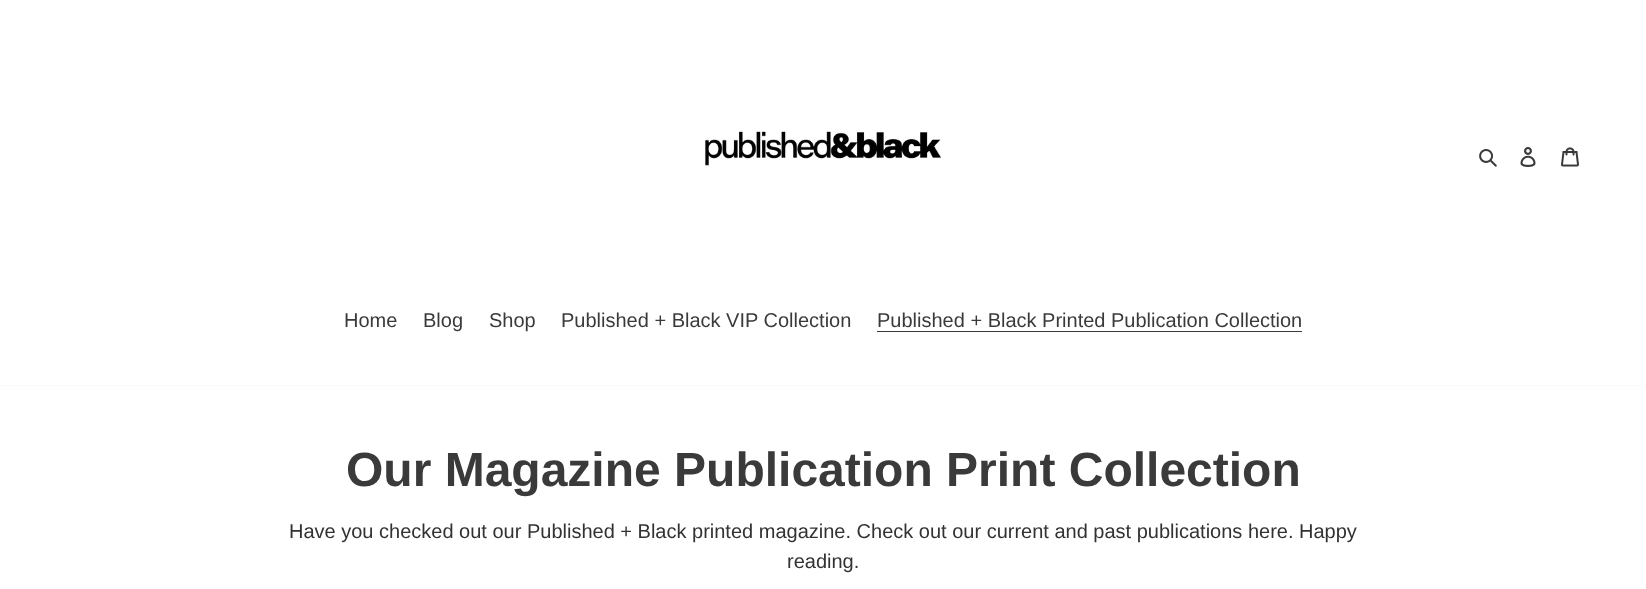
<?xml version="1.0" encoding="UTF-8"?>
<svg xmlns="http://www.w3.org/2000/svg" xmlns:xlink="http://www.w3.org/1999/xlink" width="1646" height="589">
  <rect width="100%" height="100%" fill="#ffffff" />
  <image x="705" y="131" width="236" height="35" xlink:href="image1.png" />
  <image x="1479" y="149" width="18" height="18" xlink:href="image2.png" />
  <image x="1520" y="147" width="16" height="20" xlink:href="image3.png" />
  <image x="1561" y="147" width="18" height="20" xlink:href="image4.png" />
  <rect y="385" width="1646" height="1" fill="#fafafa" />
  <rect x="877" y="331" width="425" height="1" fill="#3a3a3a" />
  <text x="344" y="327" style="font-family: Liberation Sans; font-size: 20px; fill: #3a3a3a">Home</text>
  <text x="423" y="327" style="font-family: Liberation Sans; font-size: 20px; fill: #3a3a3a">Blog</text>
  <text x="489" y="327" style="font-family: Liberation Sans; font-size: 20px; fill: #3a3a3a">Shop</text>
  <text x="561" y="327" style="font-family: Liberation Sans; font-size: 20px; fill: #3a3a3a">Published + Black VIP Collection</text>
  <text x="877" y="327" style="font-family: Liberation Sans; font-size: 20px; fill: #3a3a3a">Published + Black Printed Publication Collection</text>
  <text x="346" y="486" style="font-family: Liberation Sans; font-size: 48px; font-weight: bold; fill: #3a3a3a">Our Magazine Publication Print Collection</text>
  <text x="289" y="538" style="font-family: Liberation Sans; font-size: 20px; fill: #333232">Have you checked out our Published + Black printed magazine. Check out our current and past publications here. Happy</text>
  <text x="787" y="568" style="font-family: Liberation Sans; font-size: 20px; fill: #333232">reading.</text>
</svg>
